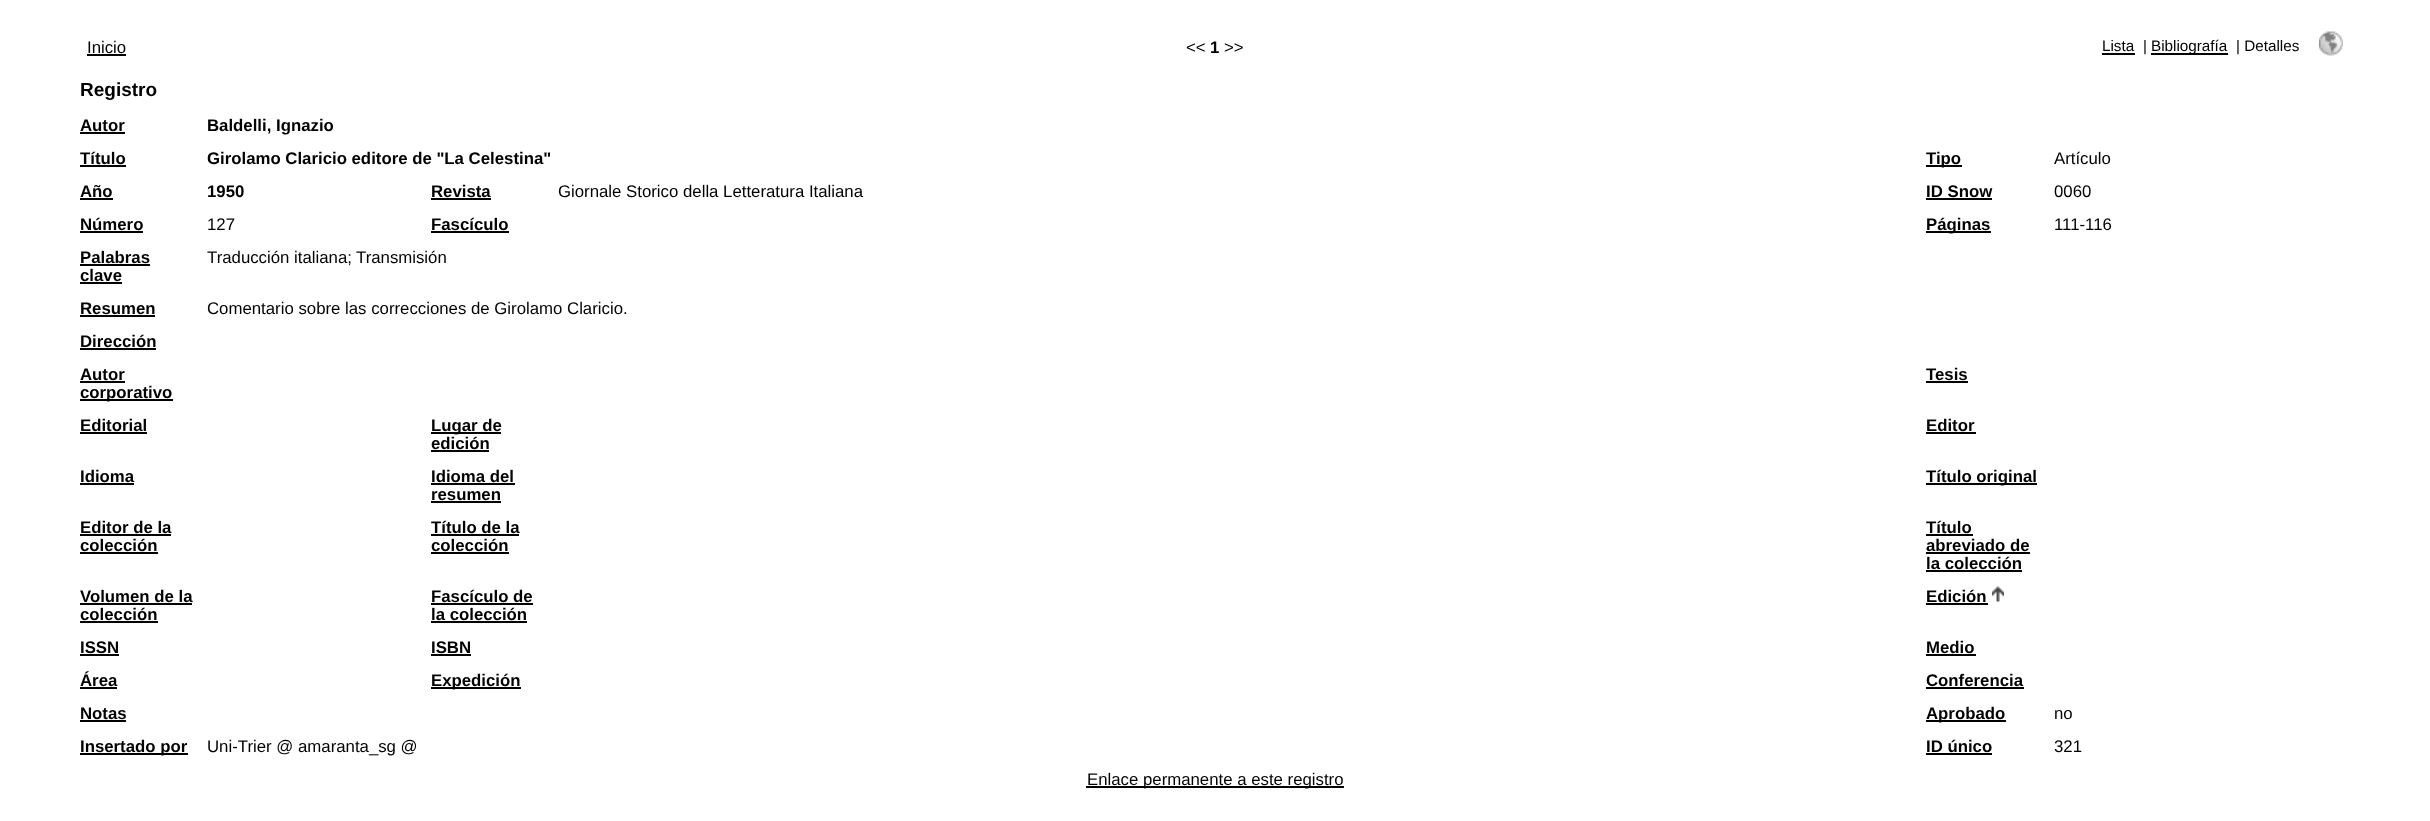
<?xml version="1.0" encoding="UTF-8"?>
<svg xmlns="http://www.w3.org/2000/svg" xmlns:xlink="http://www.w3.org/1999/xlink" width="2430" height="821">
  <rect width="100%" height="100%" fill="#ffffff" />
  <rect x="87" y="54" width="39" height="2" fill="#000000" />
  <rect x="2102" y="53" width="33" height="2" fill="#000000" />
  <rect x="2151" y="53" width="77" height="2" fill="#000000" />
  <image x="2319" y="31" width="24" height="25" xlink:href="image1.png" />
  <rect x="80" y="132" width="45" height="2" fill="#000000" />
  <rect x="80" y="165" width="46" height="2" fill="#000000" />
  <rect x="1926" y="165" width="36" height="2" fill="#000000" />
  <rect x="80" y="198" width="33" height="2" fill="#000000" />
  <rect x="431" y="198" width="60" height="2" fill="#000000" />
  <rect x="1926" y="198" width="66" height="2" fill="#000000" />
  <rect x="80" y="231" width="63" height="2" fill="#000000" />
  <rect x="431" y="231" width="78" height="2" fill="#000000" />
  <rect x="1926" y="231" width="65" height="2" fill="#000000" />
  <rect x="80" y="264" width="70" height="2" fill="#000000" />
  <rect x="80" y="282" width="42" height="2" fill="#000000" />
  <rect x="80" y="315" width="75" height="2" fill="#000000" />
  <rect x="80" y="348" width="76" height="2" fill="#000000" />
  <rect x="80" y="381" width="45" height="2" fill="#000000" />
  <rect x="80" y="399" width="93" height="2" fill="#000000" />
  <rect x="1926" y="381" width="42" height="2" fill="#000000" />
  <rect x="80" y="432" width="67" height="2" fill="#000000" />
  <rect x="431" y="432" width="70" height="2" fill="#000000" />
  <rect x="431" y="450" width="58" height="2" fill="#000000" />
  <rect x="1926" y="432" width="50" height="2" fill="#000000" />
  <rect x="80" y="483" width="54" height="2" fill="#000000" />
  <rect x="431" y="483" width="84" height="2" fill="#000000" />
  <rect x="431" y="501" width="70" height="2" fill="#000000" />
  <rect x="1926" y="483" width="111" height="2" fill="#000000" />
  <rect x="80" y="534" width="91" height="2" fill="#000000" />
  <rect x="80" y="552" width="78" height="2" fill="#000000" />
  <rect x="431" y="534" width="88" height="2" fill="#000000" />
  <rect x="431" y="552" width="78" height="2" fill="#000000" />
  <rect x="1926" y="534" width="47" height="2" fill="#000000" />
  <rect x="1926" y="552" width="104" height="2" fill="#000000" />
  <rect x="1926" y="570" width="96" height="2" fill="#000000" />
  <rect x="80" y="603" width="112" height="2" fill="#000000" />
  <rect x="80" y="621" width="78" height="2" fill="#000000" />
  <rect x="431" y="603" width="102" height="2" fill="#000000" />
  <rect x="431" y="621" width="96" height="2" fill="#000000" />
  <rect x="1926" y="603" width="62" height="2" fill="#000000" />
  <image x="1992" y="586" width="12" height="16" xlink:href="image2.png" />
  <rect x="80" y="654" width="39" height="2" fill="#000000" />
  <rect x="431" y="654" width="40" height="2" fill="#000000" />
  <rect x="1926" y="654" width="50" height="2" fill="#000000" />
  <rect x="80" y="687" width="37" height="2" fill="#000000" />
  <rect x="431" y="687" width="90" height="2" fill="#000000" />
  <rect x="1926" y="687" width="98" height="2" fill="#000000" />
  <rect x="80" y="720" width="46" height="2" fill="#000000" />
  <rect x="1926" y="720" width="80" height="2" fill="#000000" />
  <rect x="80" y="753" width="108" height="2" fill="#000000" />
  <rect x="1926" y="753" width="66" height="2" fill="#000000" />
  <rect x="1086" y="786" width="258" height="2" fill="#000000" />
  <text x="87" y="53" style="font-family: Liberation Sans; font-size: 16.8px; fill: #000000">Inicio</text>
  <text x="1186" y="53" style="font-family: Liberation Sans; font-size: 16.8px; fill: #000000">&lt;&lt;</text>
  <text x="1210" y="53" style="font-family: Liberation Sans; font-size: 16.8px; font-weight: bold; fill: #000000">1</text>
  <text x="1224" y="53" style="font-family: Liberation Sans; font-size: 16.8px; fill: #000000">&gt;&gt;</text>
  <text x="2102" y="51" style="font-family: Liberation Sans; font-size: 15.25px; fill: #000000">Lista</text>
  <text x="2143" y="51" style="font-family: Liberation Sans; font-size: 15.25px; fill: #000000">|</text>
  <text x="2151" y="51" style="font-family: Liberation Sans; font-size: 15.25px; fill: #000000">Bibliografía</text>
  <text x="2236" y="51" style="font-family: Liberation Sans; font-size: 15.25px; fill: #000000">| Detalles</text>
  <text x="80" y="96" style="font-family: Liberation Sans; font-size: 19px; font-weight: bold; fill: #000000">Registro</text>
  <text x="80" y="131" style="font-family: Liberation Sans; font-size: 16.8px; font-weight: bold; fill: #000000">Autor</text>
  <text x="207" y="131" style="font-family: Liberation Sans; font-size: 16.8px; font-weight: bold; fill: #000000">Baldelli, Ignazio</text>
  <text x="80" y="164" style="font-family: Liberation Sans; font-size: 16.8px; font-weight: bold; fill: #000000">Título</text>
  <text x="207" y="164" style="font-family: Liberation Sans; font-size: 16.8px; font-weight: bold; fill: #000000">Girolamo Claricio editore de "La Celestina"</text>
  <text x="1926" y="164" style="font-family: Liberation Sans; font-size: 16.8px; font-weight: bold; fill: #000000">Tipo</text>
  <text x="2054" y="164" style="font-family: Liberation Sans; font-size: 16.8px; fill: #000000">Artículo</text>
  <text x="80" y="197" style="font-family: Liberation Sans; font-size: 16.8px; font-weight: bold; fill: #000000">Año</text>
  <text x="207" y="197" style="font-family: Liberation Sans; font-size: 16.8px; font-weight: bold; fill: #000000">1950</text>
  <text x="431" y="197" style="font-family: Liberation Sans; font-size: 16.8px; font-weight: bold; fill: #000000">Revista</text>
  <text x="558" y="197" style="font-family: Liberation Sans; font-size: 16.8px; fill: #000000">Giornale Storico della Letteratura Italiana</text>
  <text x="1926" y="197" style="font-family: Liberation Sans; font-size: 16.8px; font-weight: bold; fill: #000000">ID Snow</text>
  <text x="2054" y="197" style="font-family: Liberation Sans; font-size: 16.8px; fill: #000000">0060</text>
  <text x="80" y="230" style="font-family: Liberation Sans; font-size: 16.8px; font-weight: bold; fill: #000000">Número</text>
  <text x="207" y="230" style="font-family: Liberation Sans; font-size: 16.8px; fill: #000000">127</text>
  <text x="431" y="230" style="font-family: Liberation Sans; font-size: 16.8px; font-weight: bold; fill: #000000">Fascículo</text>
  <text x="1926" y="230" style="font-family: Liberation Sans; font-size: 16.8px; font-weight: bold; fill: #000000">Páginas</text>
  <text x="2054" y="230" style="font-family: Liberation Sans; font-size: 16.8px; fill: #000000">111-116</text>
  <text x="80" y="263" style="font-family: Liberation Sans; font-size: 16.8px; font-weight: bold; fill: #000000">Palabras</text>
  <text x="80" y="281" style="font-family: Liberation Sans; font-size: 16.8px; font-weight: bold; fill: #000000">clave</text>
  <text x="207" y="263" style="font-family: Liberation Sans; font-size: 16.8px; fill: #000000">Traducción italiana;</text>
  <text x="356" y="263" style="font-family: Liberation Sans; font-size: 16.8px; fill: #000000">Transmisión</text>
  <text x="80" y="314" style="font-family: Liberation Sans; font-size: 16.8px; font-weight: bold; fill: #000000">Resumen</text>
  <text x="207" y="314" style="font-family: Liberation Sans; font-size: 16.8px; fill: #000000">Comentario sobre las correcciones de Girolamo Claricio.</text>
  <text x="80" y="347" style="font-family: Liberation Sans; font-size: 16.8px; font-weight: bold; fill: #000000">Dirección</text>
  <text x="80" y="380" style="font-family: Liberation Sans; font-size: 16.8px; font-weight: bold; fill: #000000">Autor</text>
  <text x="80" y="398" style="font-family: Liberation Sans; font-size: 16.8px; font-weight: bold; fill: #000000">corporativo</text>
  <text x="1926" y="380" style="font-family: Liberation Sans; font-size: 16.8px; font-weight: bold; fill: #000000">Tesis</text>
  <text x="80" y="431" style="font-family: Liberation Sans; font-size: 16.8px; font-weight: bold; fill: #000000">Editorial</text>
  <text x="431" y="431" style="font-family: Liberation Sans; font-size: 16.8px; font-weight: bold; fill: #000000">Lugar de</text>
  <text x="431" y="449" style="font-family: Liberation Sans; font-size: 16.8px; font-weight: bold; fill: #000000">edición</text>
  <text x="1926" y="431" style="font-family: Liberation Sans; font-size: 16.8px; font-weight: bold; fill: #000000">Editor</text>
  <text x="80" y="482" style="font-family: Liberation Sans; font-size: 16.8px; font-weight: bold; fill: #000000">Idioma</text>
  <text x="431" y="482" style="font-family: Liberation Sans; font-size: 16.8px; font-weight: bold; fill: #000000">Idioma del</text>
  <text x="431" y="500" style="font-family: Liberation Sans; font-size: 16.8px; font-weight: bold; fill: #000000">resumen</text>
  <text x="1926" y="482" style="font-family: Liberation Sans; font-size: 16.8px; font-weight: bold; fill: #000000">Título original</text>
  <text x="80" y="533" style="font-family: Liberation Sans; font-size: 16.8px; font-weight: bold; fill: #000000">Editor de la</text>
  <text x="80" y="551" style="font-family: Liberation Sans; font-size: 16.8px; font-weight: bold; fill: #000000">colección</text>
  <text x="431" y="533" style="font-family: Liberation Sans; font-size: 16.8px; font-weight: bold; fill: #000000">Título de la</text>
  <text x="431" y="551" style="font-family: Liberation Sans; font-size: 16.8px; font-weight: bold; fill: #000000">colección</text>
  <text x="1926" y="533" style="font-family: Liberation Sans; font-size: 16.8px; font-weight: bold; fill: #000000">Título</text>
  <text x="1926" y="551" style="font-family: Liberation Sans; font-size: 16.8px; font-weight: bold; fill: #000000">abreviado de</text>
  <text x="1926" y="569" style="font-family: Liberation Sans; font-size: 16.8px; font-weight: bold; fill: #000000">la colección</text>
  <text x="80" y="602" style="font-family: Liberation Sans; font-size: 16.8px; font-weight: bold; fill: #000000">Volumen de la</text>
  <text x="80" y="620" style="font-family: Liberation Sans; font-size: 16.8px; font-weight: bold; fill: #000000">colección</text>
  <text x="431" y="602" style="font-family: Liberation Sans; font-size: 16.8px; font-weight: bold; fill: #000000">Fascículo de</text>
  <text x="431" y="620" style="font-family: Liberation Sans; font-size: 16.8px; font-weight: bold; fill: #000000">la colección</text>
  <text x="1926" y="602" style="font-family: Liberation Sans; font-size: 16.8px; font-weight: bold; fill: #000000">Edición</text>
  <text x="80" y="653" style="font-family: Liberation Sans; font-size: 16.8px; font-weight: bold; fill: #000000">ISSN</text>
  <text x="431" y="653" style="font-family: Liberation Sans; font-size: 16.8px; font-weight: bold; fill: #000000">ISBN</text>
  <text x="1926" y="653" style="font-family: Liberation Sans; font-size: 16.8px; font-weight: bold; fill: #000000">Medio</text>
  <text x="80" y="686" style="font-family: Liberation Sans; font-size: 16.8px; font-weight: bold; fill: #000000">Área</text>
  <text x="431" y="686" style="font-family: Liberation Sans; font-size: 16.8px; font-weight: bold; fill: #000000">Expedición</text>
  <text x="1926" y="686" style="font-family: Liberation Sans; font-size: 16.8px; font-weight: bold; fill: #000000">Conferencia</text>
  <text x="80" y="719" style="font-family: Liberation Sans; font-size: 16.8px; font-weight: bold; fill: #000000">Notas</text>
  <text x="1926" y="719" style="font-family: Liberation Sans; font-size: 16.8px; font-weight: bold; fill: #000000">Aprobado</text>
  <text x="2054" y="719" style="font-family: Liberation Sans; font-size: 16.8px; fill: #000000">no</text>
  <text x="80" y="752" style="font-family: Liberation Sans; font-size: 16.8px; font-weight: bold; fill: #000000">Insertado por</text>
  <text x="207" y="752" style="font-family: Liberation Sans; font-size: 16.8px; fill: #000000">Uni-Trier @ amaranta_sg @</text>
  <text x="1926" y="752" style="font-family: Liberation Sans; font-size: 16.8px; font-weight: bold; fill: #000000">ID único</text>
  <text x="2054" y="752" style="font-family: Liberation Sans; font-size: 16.8px; fill: #000000">321</text>
  <text x="1087" y="785" style="font-family: Liberation Sans; font-size: 16.8px; fill: #000000">Enlace permanente a este registro</text>
</svg>
